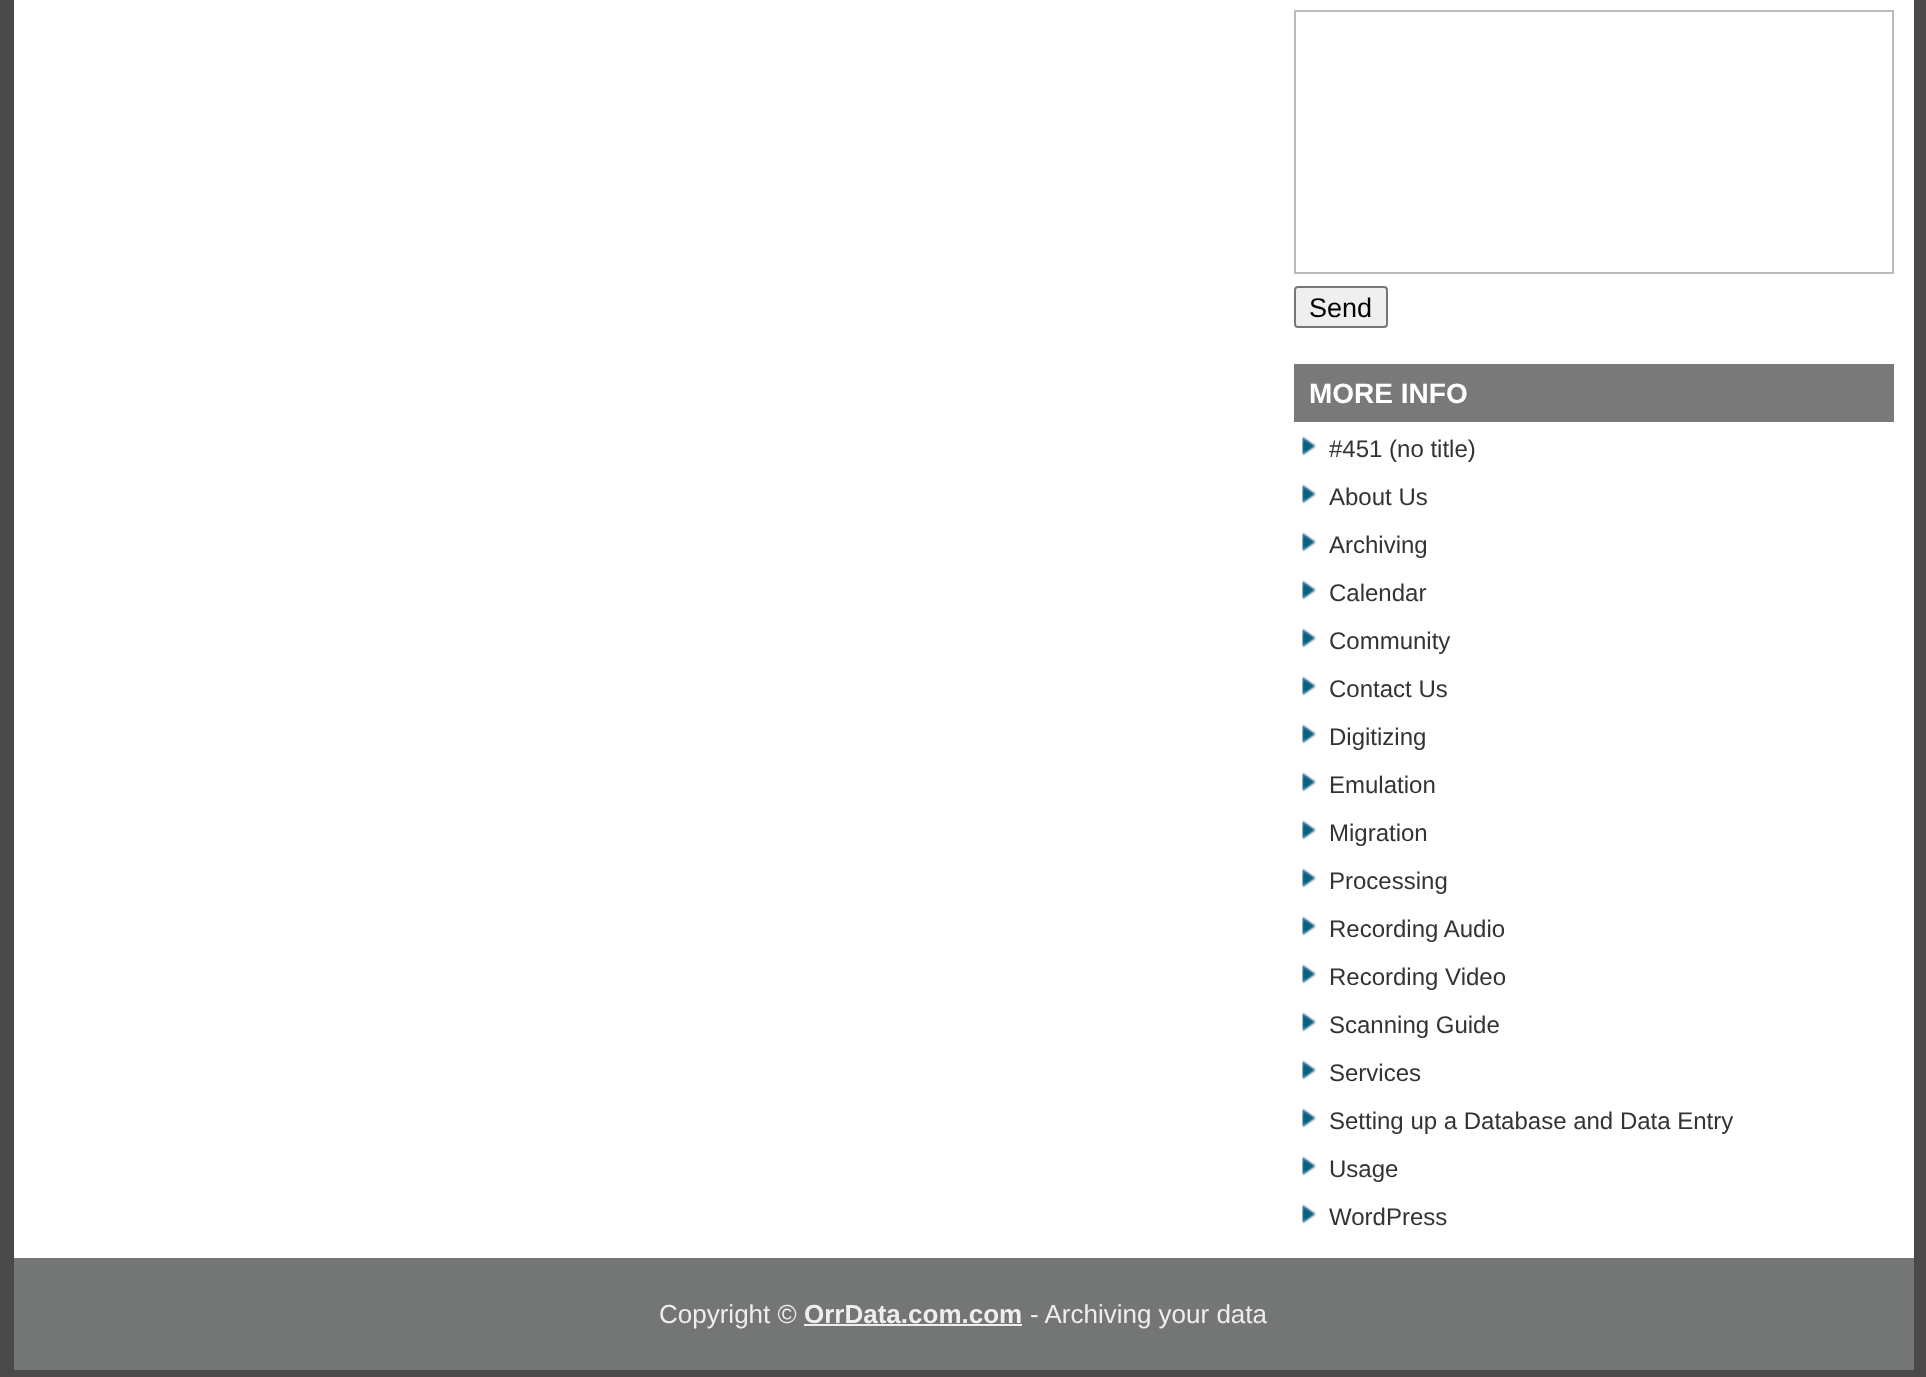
<?xml version="1.0" encoding="UTF-8"?>
<svg xmlns="http://www.w3.org/2000/svg" xmlns:xlink="http://www.w3.org/1999/xlink" width="1926" height="1377">
  <rect width="100%" height="100%" fill="#4a4848" />
  <rect x="14" width="1900" height="1258" fill="#ffffff" />
  <rect x="1295" y="11" width="598" height="262" fill="none" stroke="#bbbbbb" stroke-width="2" />
  <rect x="1295" y="287" width="92" height="40" rx="3" fill="#efefef" stroke="#767676" stroke-width="2" />
  <rect x="1294" y="364" width="600" height="58" fill="#787978" />
  <image x="1302" y="435" width="14" height="22" xlink:href="image1.png" />
  <image x="1302" y="483" width="14" height="22" xlink:href="image1.png" />
  <image x="1302" y="531" width="14" height="22" xlink:href="image1.png" />
  <image x="1302" y="579" width="14" height="22" xlink:href="image1.png" />
  <image x="1302" y="627" width="14" height="22" xlink:href="image1.png" />
  <image x="1302" y="675" width="14" height="22" xlink:href="image1.png" />
  <image x="1302" y="723" width="14" height="22" xlink:href="image1.png" />
  <image x="1302" y="771" width="14" height="22" xlink:href="image1.png" />
  <image x="1302" y="819" width="14" height="22" xlink:href="image1.png" />
  <image x="1302" y="867" width="14" height="22" xlink:href="image1.png" />
  <image x="1302" y="915" width="14" height="22" xlink:href="image1.png" />
  <image x="1302" y="963" width="14" height="22" xlink:href="image1.png" />
  <image x="1302" y="1011" width="14" height="22" xlink:href="image2.png" />
  <image x="1302" y="1059" width="14" height="22" xlink:href="image1.png" />
  <image x="1302" y="1107" width="14" height="22" xlink:href="image1.png" />
  <image x="1302" y="1155" width="14" height="22" xlink:href="image1.png" />
  <image x="1302" y="1203" width="14" height="22" xlink:href="image1.png" />
  <rect x="14" y="1258" width="1900" height="112" fill="#747575" />
  <rect x="804" y="1324" width="218" height="2" fill="#eeeeee" />
  <text x="1309" y="317" style="font-family: Liberation Sans; font-size: 27px; fill: #000000">Send</text>
  <text x="1309" y="403" style="font-family: Liberation Sans; font-size: 28px; font-weight: bold; fill: #ffffff">MORE INFO</text>
  <text x="1329" y="457" style="font-family: Liberation Sans; font-size: 24px; fill: #333333">#451 (no title)</text>
  <text x="1329" y="505" style="font-family: Liberation Sans; font-size: 24px; fill: #333333">About Us</text>
  <text x="1329" y="553" style="font-family: Liberation Sans; font-size: 24px; fill: #333333">Archiving</text>
  <text x="1329" y="601" style="font-family: Liberation Sans; font-size: 24px; fill: #333333">Calendar</text>
  <text x="1329" y="649" style="font-family: Liberation Sans; font-size: 24px; fill: #333333">Community</text>
  <text x="1329" y="697" style="font-family: Liberation Sans; font-size: 24px; fill: #333333">Contact Us</text>
  <text x="1329" y="745" style="font-family: Liberation Sans; font-size: 24px; fill: #333333">Digitizing</text>
  <text x="1329" y="793" style="font-family: Liberation Sans; font-size: 24px; fill: #333333">Emulation</text>
  <text x="1329" y="841" style="font-family: Liberation Sans; font-size: 24px; fill: #333333">Migration</text>
  <text x="1329" y="889" style="font-family: Liberation Sans; font-size: 24px; fill: #333333">Processing</text>
  <text x="1329" y="937" style="font-family: Liberation Sans; font-size: 24px; fill: #333333">Recording Audio</text>
  <text x="1329" y="985" style="font-family: Liberation Sans; font-size: 24px; fill: #333333">Recording Video</text>
  <text x="1329" y="1033" style="font-family: Liberation Sans; font-size: 24px; fill: #333333">Scanning Guide</text>
  <text x="1329" y="1081" style="font-family: Liberation Sans; font-size: 24px; fill: #333333">Services</text>
  <text x="1329" y="1129" style="font-family: Liberation Sans; font-size: 24px; fill: #333333">Setting up a Database and Data Entry</text>
  <text x="1329" y="1177" style="font-family: Liberation Sans; font-size: 24px; fill: #333333">Usage</text>
  <text x="1329" y="1225" style="font-family: Liberation Sans; font-size: 24px; fill: #333333">WordPress</text>
  <text x="659" y="1323" style="font-family: Liberation Sans; font-size: 26px; fill: #eeeeee">Copyright ©</text>
  <text x="804" y="1323" style="font-family: Liberation Sans; font-size: 26px; font-weight: bold; fill: #eeeeee">OrrData.com.com</text>
  <text x="1030" y="1323" style="font-family: Liberation Sans; font-size: 26px; fill: #eeeeee">- Archiving your data</text>
</svg>
